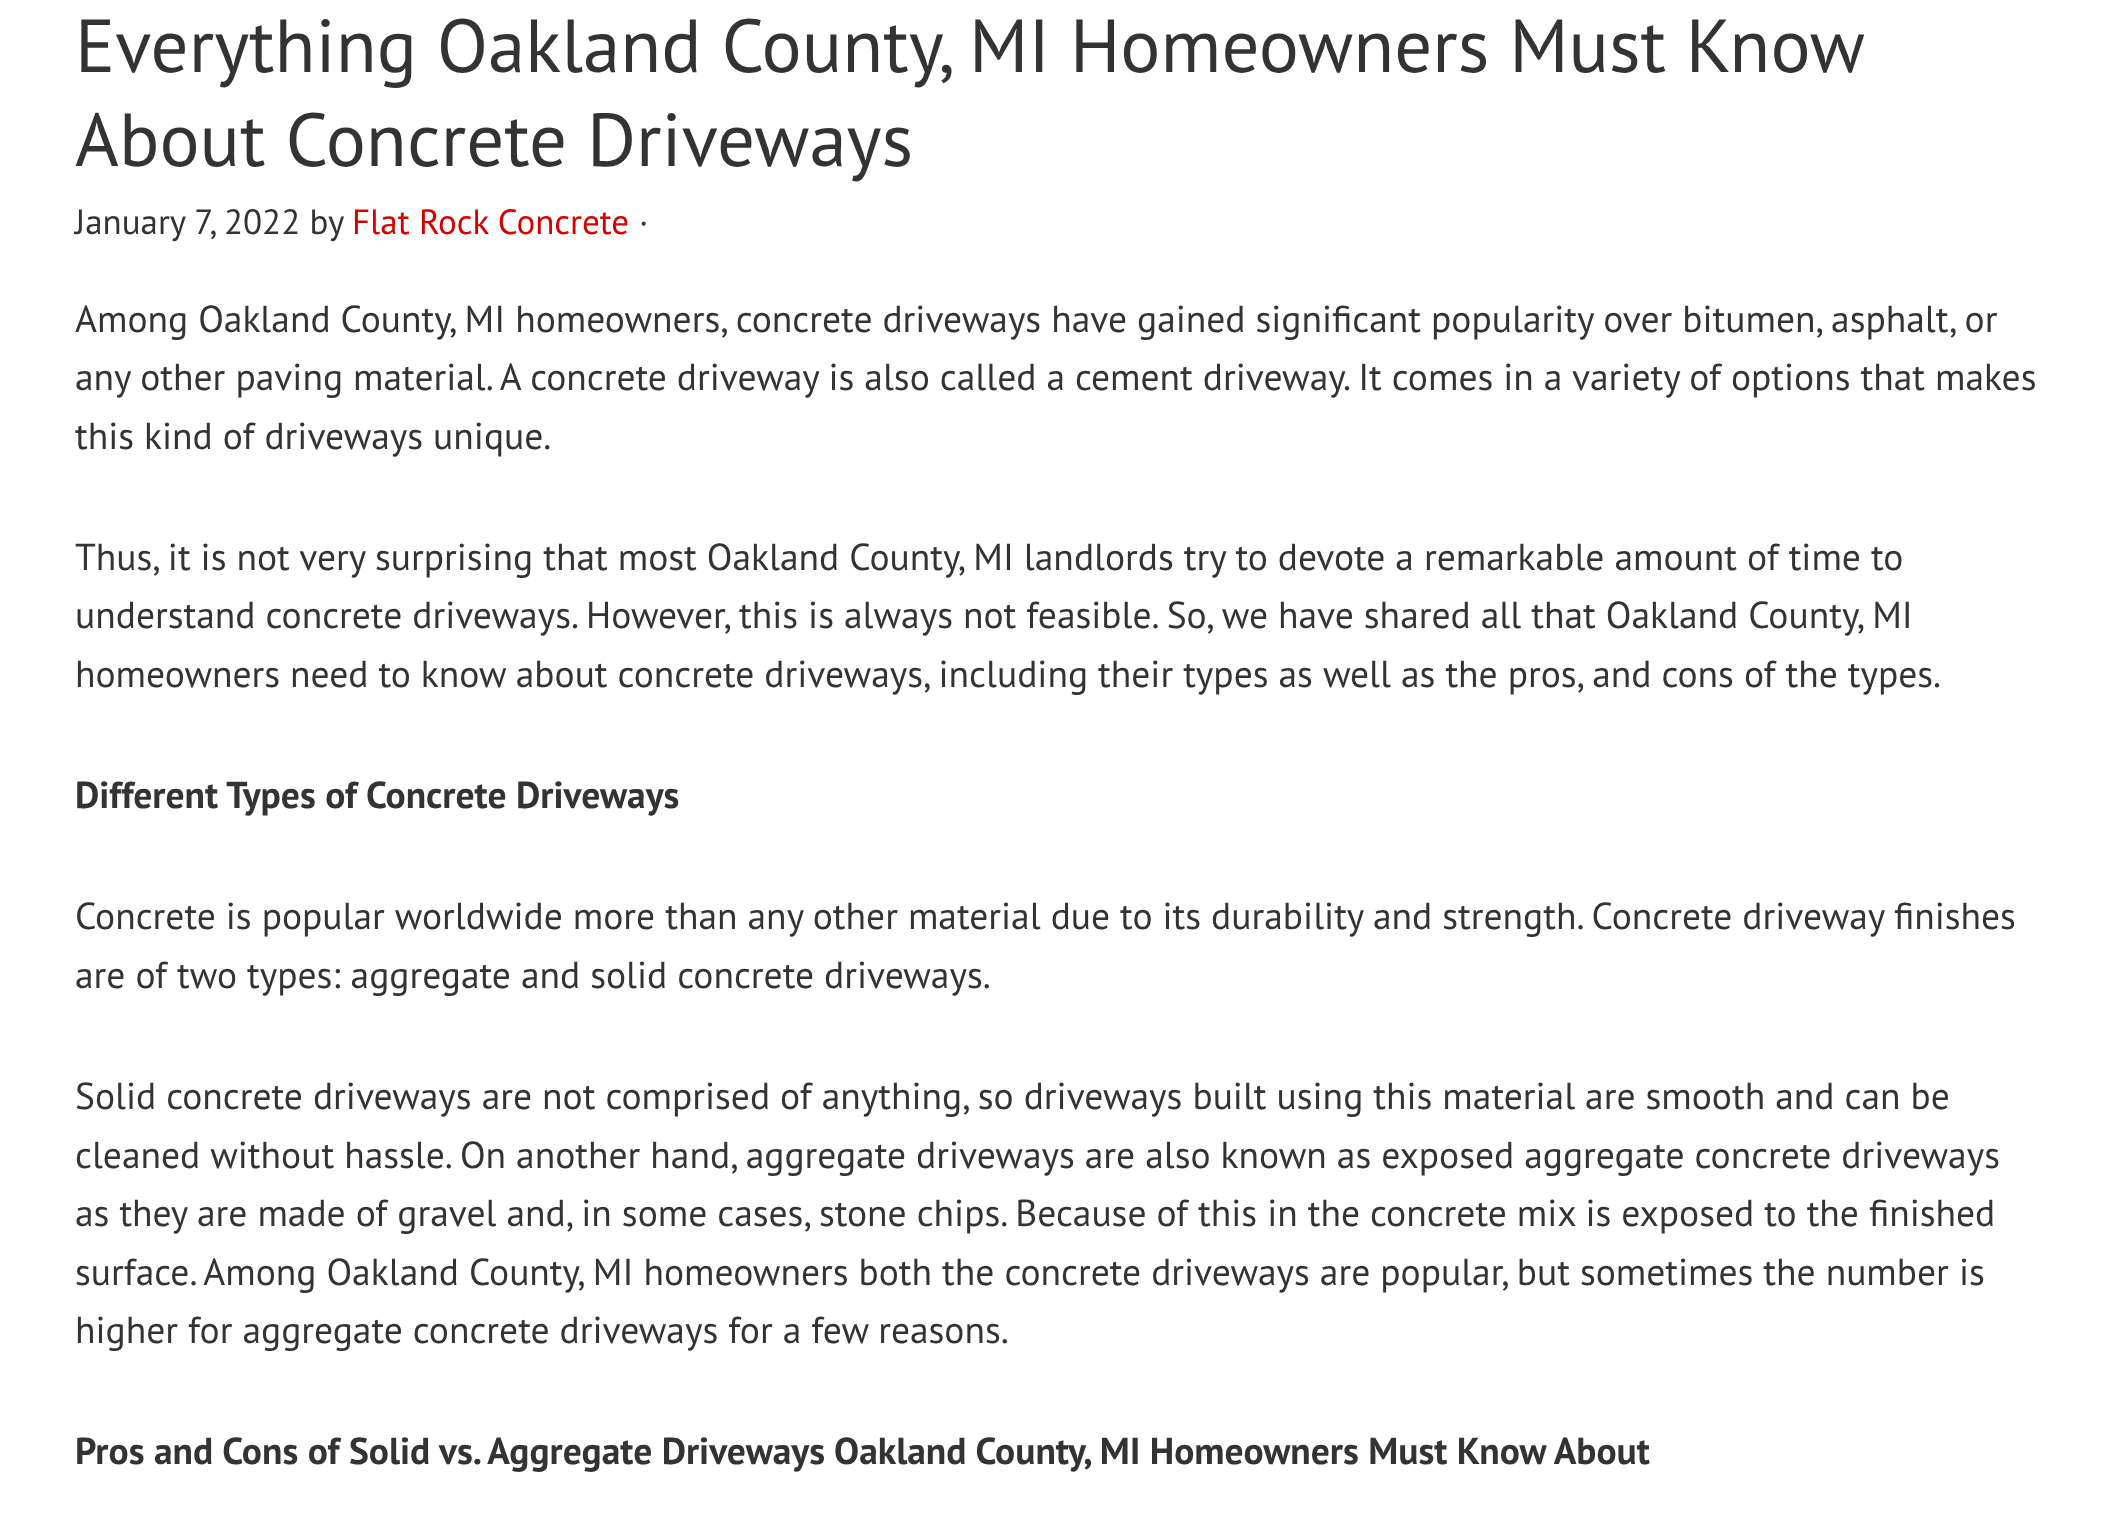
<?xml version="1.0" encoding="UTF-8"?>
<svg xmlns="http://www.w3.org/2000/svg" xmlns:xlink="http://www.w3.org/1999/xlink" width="2112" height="1529">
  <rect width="100%" height="100%" fill="#ffffff" />
  <text x="75" y="72" word-spacing="-0.25" style="font-family: PT Sans; font-size: 75px; fill: #333333">Everything Oakland County, MI Homeowners Must Know</text>
  <text x="75" y="166" style="font-family: PT Sans; font-size: 75px; fill: #333333">About Concrete Driveways</text>
  <text x="75" y="234" style="font-family: PT Sans; font-size: 35px; fill: #333333">January 7, 2022 by</text>
  <text x="352" y="234" style="font-family: PT Sans; font-size: 35px; fill: #d40000">Flat Rock Concrete</text>
  <text x="639" y="234" style="font-family: PT Sans; font-size: 35px; fill: #333333">·</text>
  <text x="75" y="332" style="font-family: PT Sans; font-size: 37.5px; fill: #333333">Among Oakland County, MI homeowners, concrete driveways have gained significant popularity over bitumen, asphalt, or</text>
  <text x="75" y="390" style="font-family: PT Sans; font-size: 37.5px; fill: #333333">any other paving material. A concrete driveway is also called a cement driveway. It comes in a variety of options that makes</text>
  <text x="75" y="449" style="font-family: PT Sans; font-size: 37.5px; fill: #333333">this kind of driveways unique.</text>
  <text x="75" y="570" style="font-family: PT Sans; font-size: 37.5px; fill: #333333">Thus, it is not very surprising that most Oakland County, MI landlords try to devote a remarkable amount of time to</text>
  <text x="75" y="628" style="font-family: PT Sans; font-size: 37.5px; fill: #333333">understand concrete driveways. However, this is always not feasible. So, we have shared all that Oakland County, MI</text>
  <text x="75" y="687" style="font-family: PT Sans; font-size: 37.5px; fill: #333333">homeowners need to know about concrete driveways, including their types as well as the pros, and cons of the types.</text>
  <text x="75" y="808" style="font-family: PT Sans; font-size: 37.5px; font-weight: bold; fill: #333333">Different Types of Concrete Driveways</text>
  <text x="75" y="929" style="font-family: PT Sans; font-size: 37.5px; fill: #333333">Concrete is popular worldwide more than any other material due to its durability and strength. Concrete driveway finishes</text>
  <text x="75" y="988" style="font-family: PT Sans; font-size: 37.5px; fill: #333333">are of two types: aggregate and solid concrete driveways.</text>
  <text x="75" y="1109" style="font-family: PT Sans; font-size: 37.5px; fill: #333333">Solid concrete driveways are not comprised of anything, so driveways built using this material are smooth and can be</text>
  <text x="75" y="1168" style="font-family: PT Sans; font-size: 37.5px; fill: #333333">cleaned without hassle. On another hand, aggregate driveways are also known as exposed aggregate concrete driveways</text>
  <text x="75" y="1226" style="font-family: PT Sans; font-size: 37.5px; fill: #333333">as they are made of gravel and, in some cases, stone chips. Because of this in the concrete mix is exposed to the finished</text>
  <text x="75" y="1285" style="font-family: PT Sans; font-size: 37.5px; fill: #333333">surface. Among Oakland County, MI homeowners both the concrete driveways are popular, but sometimes the number is</text>
  <text x="75" y="1343" style="font-family: PT Sans; font-size: 37.5px; fill: #333333">higher for aggregate concrete driveways for a few reasons.</text>
  <text x="75" y="1464" style="font-family: PT Sans; font-size: 37.5px; font-weight: bold; fill: #333333">Pros and Cons of Solid vs. Aggregate Driveways Oakland County, MI Homeowners Must Know About</text>
</svg>
